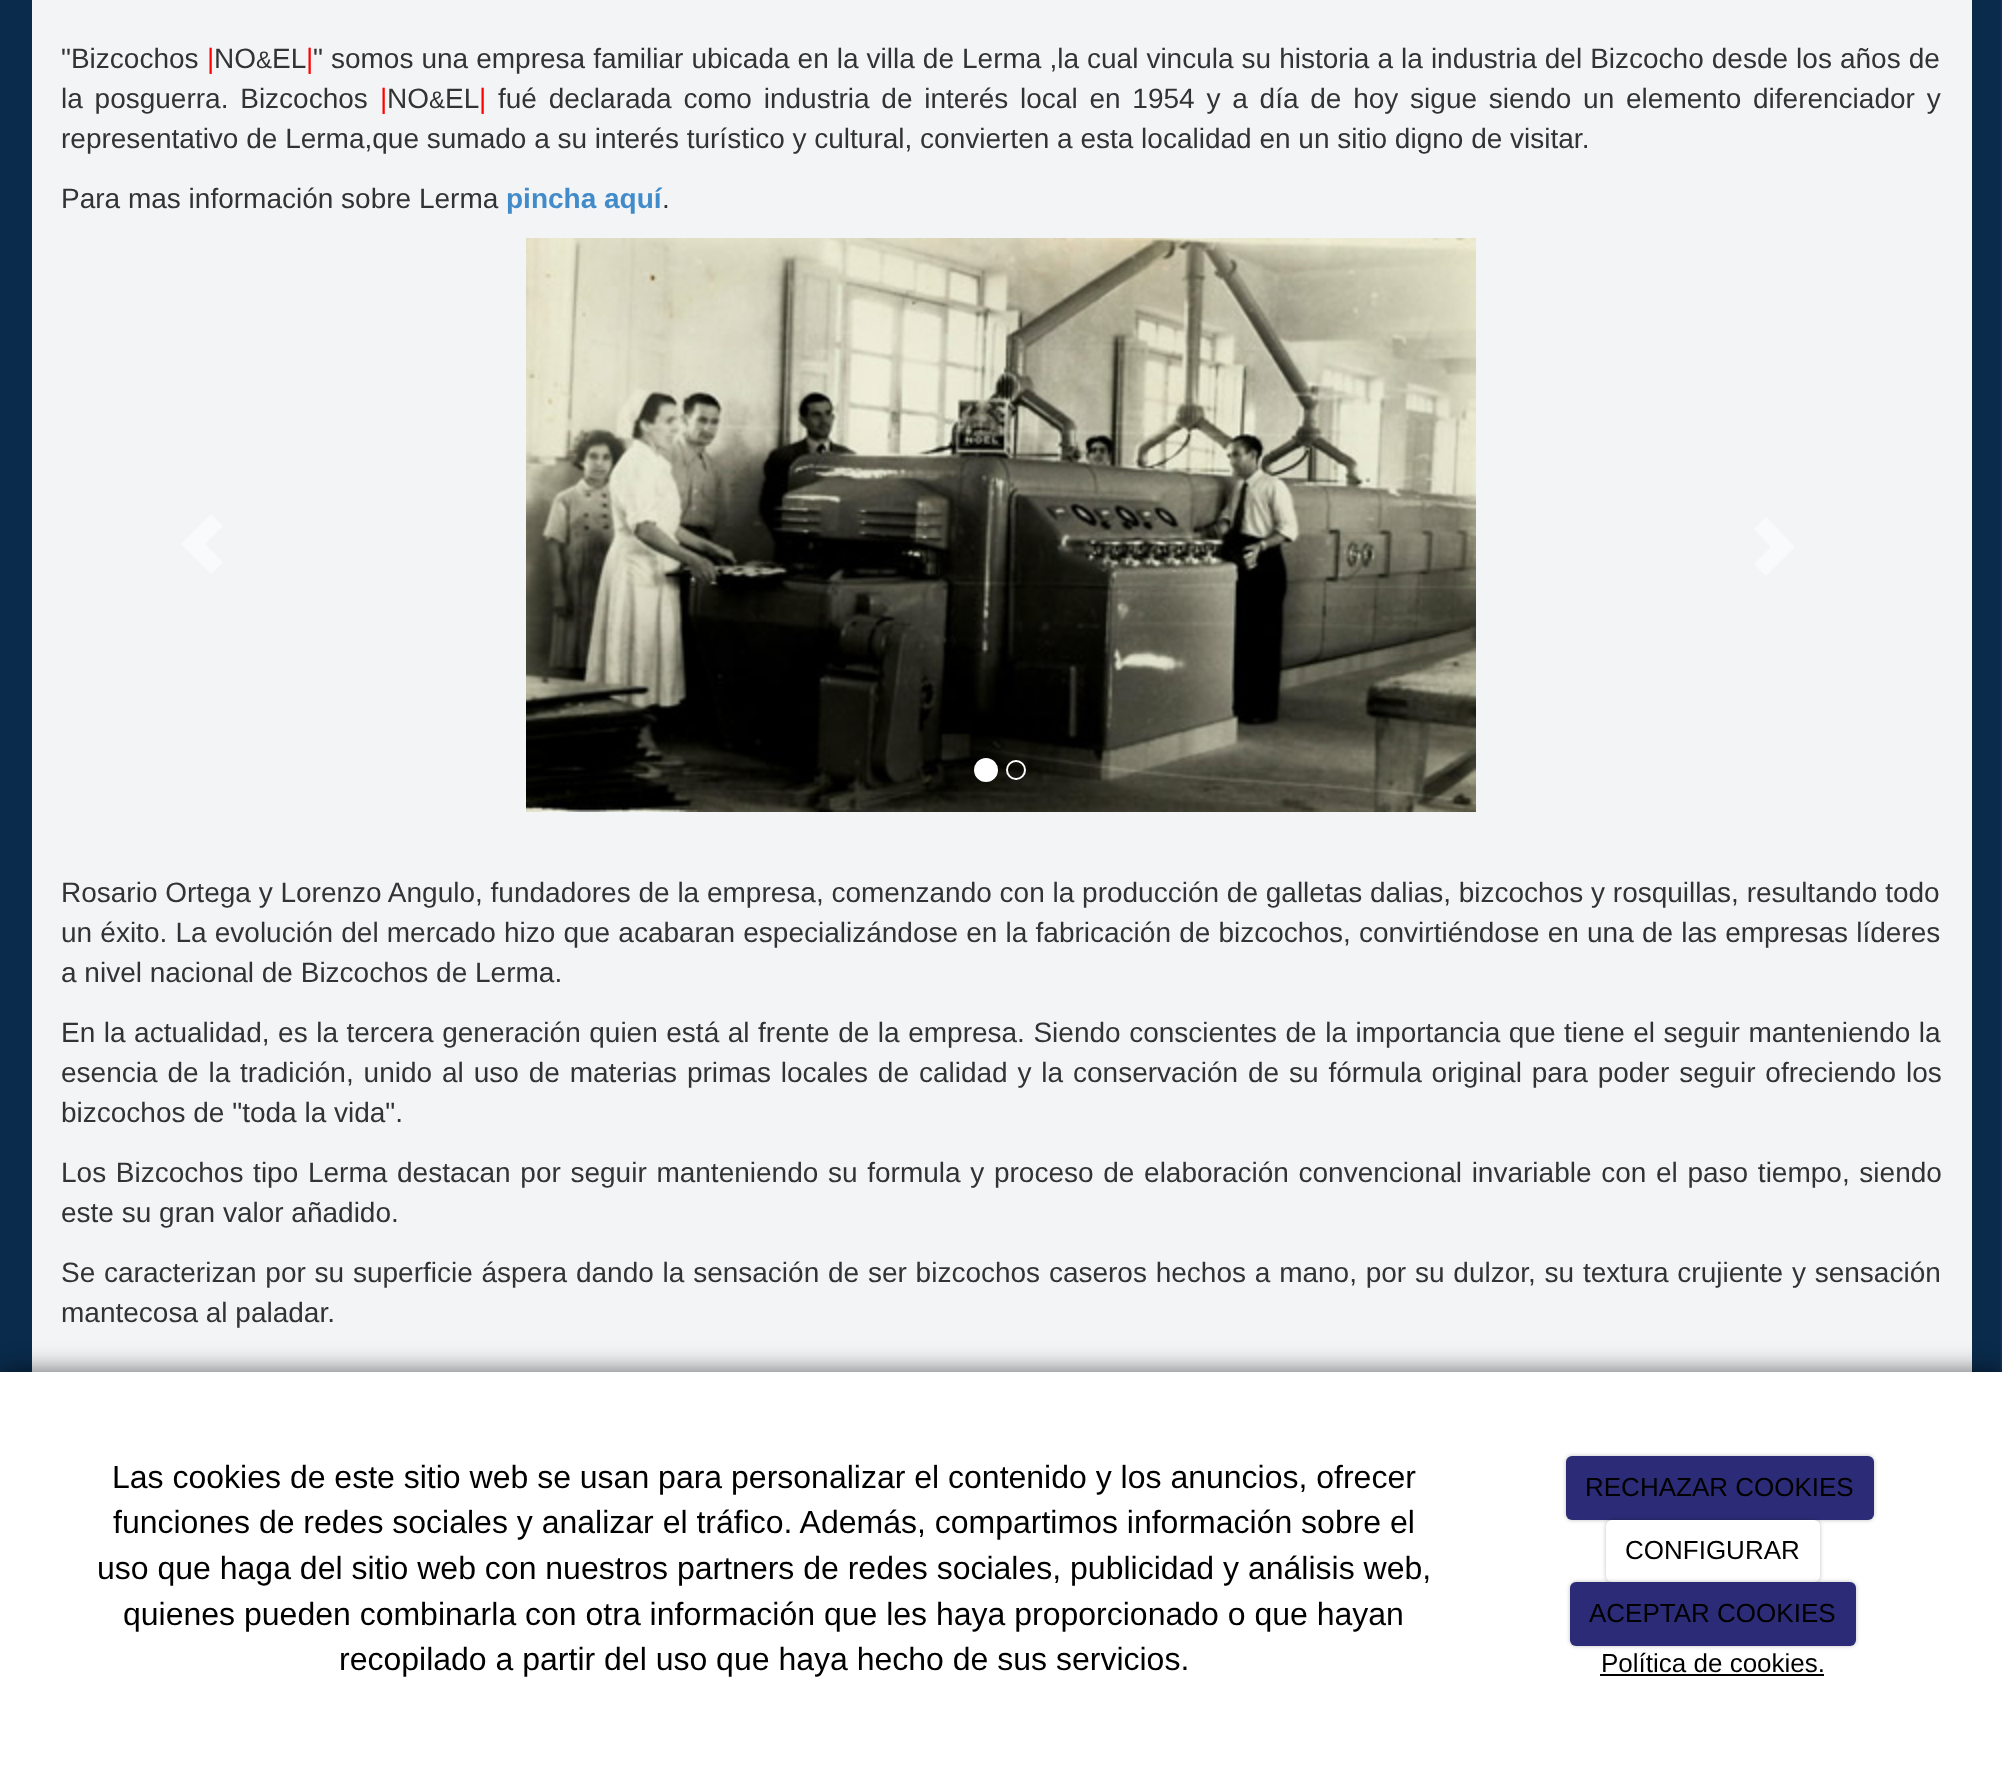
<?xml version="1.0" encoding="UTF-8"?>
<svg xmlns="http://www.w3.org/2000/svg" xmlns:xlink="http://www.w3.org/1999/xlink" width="2002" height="1767">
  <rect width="100%" height="100%" fill="#ffffff" />
  <image x="0" y="0" width="2002" height="1372" xlink:href="image1.png" />
  <rect x="32" width="1940" height="1372" fill="#f3f4f6" />
  <path d="M 181 544 l 30 30 l 12 -12 l -18 -18 l 18 -18 l -12 -12 z" fill="#f9fafb" />
  <image x="526" y="238" width="950" height="574" xlink:href="image2.png" />
  <path d="M 1754 564 l 17 -17 l -17 -18 l 12 -12 l 29 30 l -29 29 z" fill="#f9fafb" />
  <circle cx="986" cy="770" r="11" fill="#ffffff" stroke="#ffffff" stroke-width="2" />
  <circle cx="1016" cy="770" r="9" fill="none" stroke="#ffffff" stroke-width="2" />
  <rect y="1372" width="2002" height="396" fill="#000000" fill-opacity="0.6" filter="blur(13px)" />
  <rect y="1372" width="2002" height="395" fill="#ffffff" />
  <rect x="1566" y="1456" width="308" height="64" rx="6" fill="#000000" fill-opacity="0.25" filter="blur(2px)" />
  <rect x="1566" y="1456" width="308" height="64" rx="6" fill="#2c2b77" />
  <rect x="1606" y="1520" width="214" height="62" rx="6" fill="#000000" fill-opacity="0.25" filter="blur(2px)" />
  <rect x="1606" y="1520" width="214" height="62" rx="6" fill="#ffffff" />
  <rect x="1570" y="1582" width="286" height="64" rx="6" fill="#000000" fill-opacity="0.25" filter="blur(2px)" />
  <rect x="1570" y="1582" width="286" height="64" rx="6" fill="#2c2b77" />
  <rect x="1600" y="1674" width="224" height="2" fill="#000000" />
  <text x="61" y="68" style="font-family: Liberation Sans; font-size: 28px; fill: #333333">"Bizcochos</text>
  <text x="207" y="68" style="font-family: Liberation Sans; font-size: 28px; fill: #ff0000">|</text>
  <text x="214" y="68" style="font-family: Liberation Sans; font-size: 28px; fill: #333333">NO</text>
  <text x="256" y="68" style="font-family: Liberation Sans; font-size: 24px; fill: #333333">&amp;</text>
  <text x="272" y="68" style="font-family: Liberation Sans; font-size: 28px; fill: #333333">EL</text>
  <text x="306" y="68" style="font-family: Liberation Sans; font-size: 28px; fill: #ff0000">|</text>
  <text x="313" y="68" word-spacing="0.25" style="font-family: Liberation Sans; font-size: 28px; fill: #333333">" somos una empresa familiar ubicada en la villa de Lerma ,la cual vincula su historia a la industria del Bizcocho desde los años de</text>
  <text x="61" y="108" word-spacing="4" style="font-family: Liberation Sans; font-size: 28px; fill: #333333">la posguerra. Bizcochos</text>
  <text x="380" y="108" style="font-family: Liberation Sans; font-size: 28px; fill: #ff0000">|</text>
  <text x="387" y="108" style="font-family: Liberation Sans; font-size: 28px; fill: #333333">NO</text>
  <text x="429" y="108" style="font-family: Liberation Sans; font-size: 24px; fill: #333333">&amp;</text>
  <text x="445" y="108" style="font-family: Liberation Sans; font-size: 28px; fill: #333333">EL</text>
  <text x="479" y="108" style="font-family: Liberation Sans; font-size: 28px; fill: #ff0000">|</text>
  <text x="498" y="108" word-spacing="4" style="font-family: Liberation Sans; font-size: 28px; fill: #333333">fué declarada como industria de interés local en 1954 y a día de hoy sigue siendo un elemento diferenciador y</text>
  <text x="61" y="148" style="font-family: Liberation Sans; font-size: 28px; fill: #333333">representativo de Lerma,que sumado a su interés turístico y cultural, convierten a esta localidad en un sitio digno de visitar.</text>
  <text x="61" y="208" style="font-family: Liberation Sans; font-size: 28px; fill: #333333">Para mas información sobre Lerma</text>
  <text x="506" y="208" style="font-family: Liberation Sans; font-size: 28px; font-weight: bold; fill: #428bca">pincha aquí</text>
  <text x="662" y="208" style="font-family: Liberation Sans; font-size: 28px; fill: #333333">.</text>
  <text x="61" y="902" style="font-family: Liberation Sans; font-size: 28px; fill: #333333">Rosario Ortega y Lorenzo Angulo, fundadores de la empresa, comenzando con la producción de galletas dalias, bizcochos y rosquillas, resultando todo</text>
  <text x="61" y="942" word-spacing="0.4" style="font-family: Liberation Sans; font-size: 28px; fill: #333333">un éxito. La evolución del mercado hizo que acabaran especializándose en la fabricación de bizcochos, convirtiéndose en una de las empresas líderes</text>
  <text x="61" y="982" style="font-family: Liberation Sans; font-size: 28px; fill: #333333">a nivel nacional de Bizcochos de Lerma.</text>
  <text x="61" y="1042" word-spacing="0.75" style="font-family: Liberation Sans; font-size: 28px; fill: #333333">En la actualidad, es la tercera generación quien está al frente de la empresa. Siendo conscientes de la importancia que tiene el seguir manteniendo la</text>
  <text x="61" y="1082" word-spacing="2.1" style="font-family: Liberation Sans; font-size: 28px; fill: #333333">esencia de la tradición, unido al uso de materias primas locales de calidad y la conservación de su fórmula original para poder seguir ofreciendo los</text>
  <text x="61" y="1122" style="font-family: Liberation Sans; font-size: 28px; fill: #333333">bizcochos de "toda la vida".</text>
  <text x="61" y="1182" word-spacing="1.9" style="font-family: Liberation Sans; font-size: 28px; fill: #333333">Los Bizcochos tipo Lerma destacan por seguir manteniendo su formula y proceso de elaboración convencional invariable con el paso tiempo, siendo</text>
  <text x="61" y="1222" style="font-family: Liberation Sans; font-size: 28px; fill: #333333">este su gran valor añadido.</text>
  <text x="61" y="1282" word-spacing="1" style="font-family: Liberation Sans; font-size: 28px; fill: #333333">Se caracterizan por su superficie áspera dando la sensación de ser bizcochos caseros hechos a mano, por su dulzor, su textura crujiente y sensación</text>
  <text x="61" y="1322" style="font-family: Liberation Sans; font-size: 28px; fill: #333333">mantecosa al paladar.</text>
  <text x="112" y="1488" style="font-family: Liberation Sans; font-size: 32px; fill: #000000">Las cookies de este sitio web se usan para personalizar el contenido y los anuncios, ofrecer</text>
  <text x="113" y="1533" style="font-family: Liberation Sans; font-size: 32px; fill: #000000">funciones de redes sociales y analizar el tráfico. Además, compartimos información sobre el</text>
  <text x="97" y="1579" style="font-family: Liberation Sans; font-size: 32px; fill: #000000">uso que haga del sitio web con nuestros partners de redes sociales, publicidad y análisis web,</text>
  <text x="123" y="1625" style="font-family: Liberation Sans; font-size: 32px; fill: #000000">quienes pueden combinarla con otra información que les haya proporcionado o que hayan</text>
  <text x="339" y="1670" style="font-family: Liberation Sans; font-size: 32px; fill: #000000">recopilado a partir del uso que haya hecho de sus servicios.</text>
  <text x="1585" y="1496" style="font-family: Liberation Sans; font-size: 26px; fill: #000000">RECHAZAR COOKIES</text>
  <text x="1625" y="1559" style="font-family: Liberation Sans; font-size: 26px; fill: #000000">CONFIGURAR</text>
  <text x="1589" y="1622" style="font-family: Liberation Sans; font-size: 26px; fill: #000000">ACEPTAR COOKIES</text>
  <text x="1601" y="1672" style="font-family: Liberation Sans; font-size: 26px; fill: #000000">Política de cookies.</text>
</svg>
